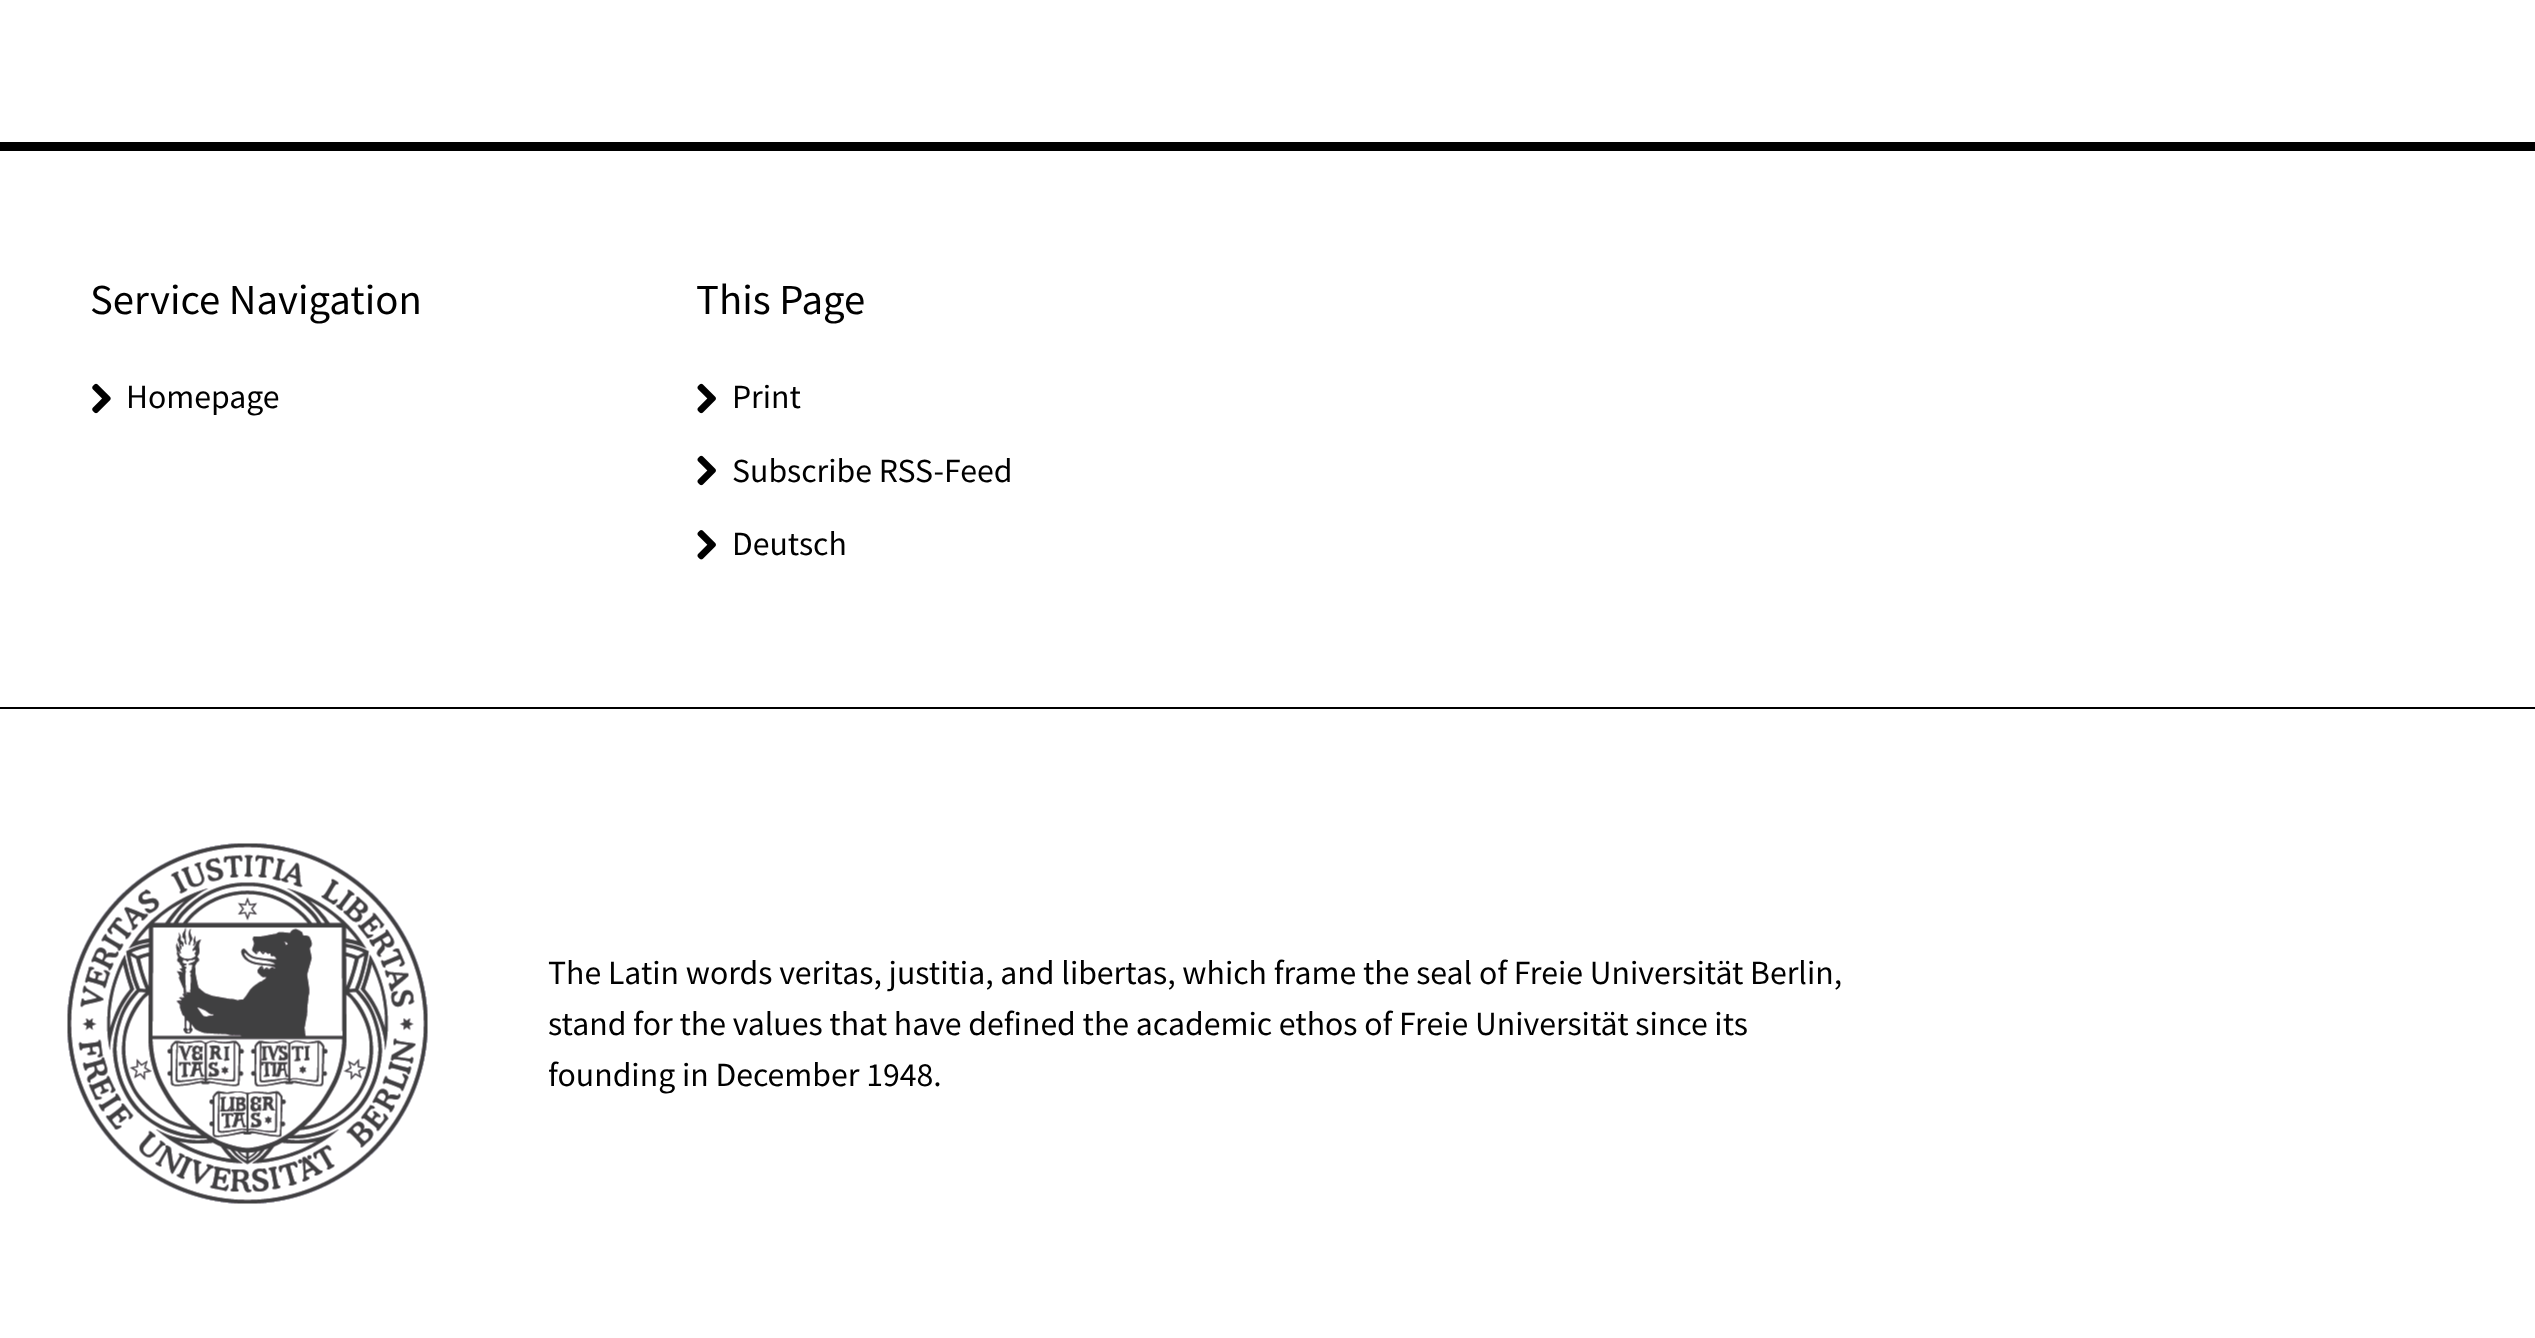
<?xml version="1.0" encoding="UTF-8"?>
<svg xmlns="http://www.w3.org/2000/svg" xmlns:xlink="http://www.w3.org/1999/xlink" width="2535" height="1338">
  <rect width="100%" height="100%" fill="#ffffff" />
  <rect y="142" width="2535" height="9" fill="#000000" />
  <rect y="707" width="2535" height="2" fill="#000000" />
  <image x="92" y="383" width="19" height="31" xlink:href="image1.png" />
  <image x="697" y="383" width="19" height="31" xlink:href="image2.png" />
  <image x="697" y="455" width="19" height="31" xlink:href="image2.png" />
  <image x="697" y="530" width="19" height="30" xlink:href="image3.png" />
  <image x="67" y="843" width="361" height="361" xlink:href="image4.png" />
  <text x="90" y="314" style="font-family: Source Sans Pro; font-size: 42.75px; fill: #000000">Service Navigation</text>
  <text x="126" y="408" style="font-family: Source Sans Pro; font-size: 33.75px; fill: #000000">Homepage</text>
  <text x="696" y="314" style="font-family: Source Sans Pro; font-size: 42.75px; fill: #000000">This Page</text>
  <text x="732" y="408" style="font-family: Source Sans Pro; font-size: 33.75px; fill: #000000">Print</text>
  <text x="732" y="482" style="font-family: Source Sans Pro; font-size: 33.75px; fill: #000000">Subscribe RSS-Feed</text>
  <text x="732" y="555" style="font-family: Source Sans Pro; font-size: 33.75px; fill: #000000">Deutsch</text>
  <text x="548" y="984" style="font-family: Source Sans Pro; font-size: 33.75px; fill: #000000">The Latin words veritas, justitia, and libertas, which frame the seal of Freie Universität Berlin,</text>
  <text x="548" y="1035" style="font-family: Source Sans Pro; font-size: 33.75px; fill: #000000">stand for the values that have defined the academic ethos of Freie Universität since its</text>
  <text x="548" y="1086" style="font-family: Source Sans Pro; font-size: 33.75px; fill: #000000">founding in December 1948.</text>
</svg>
